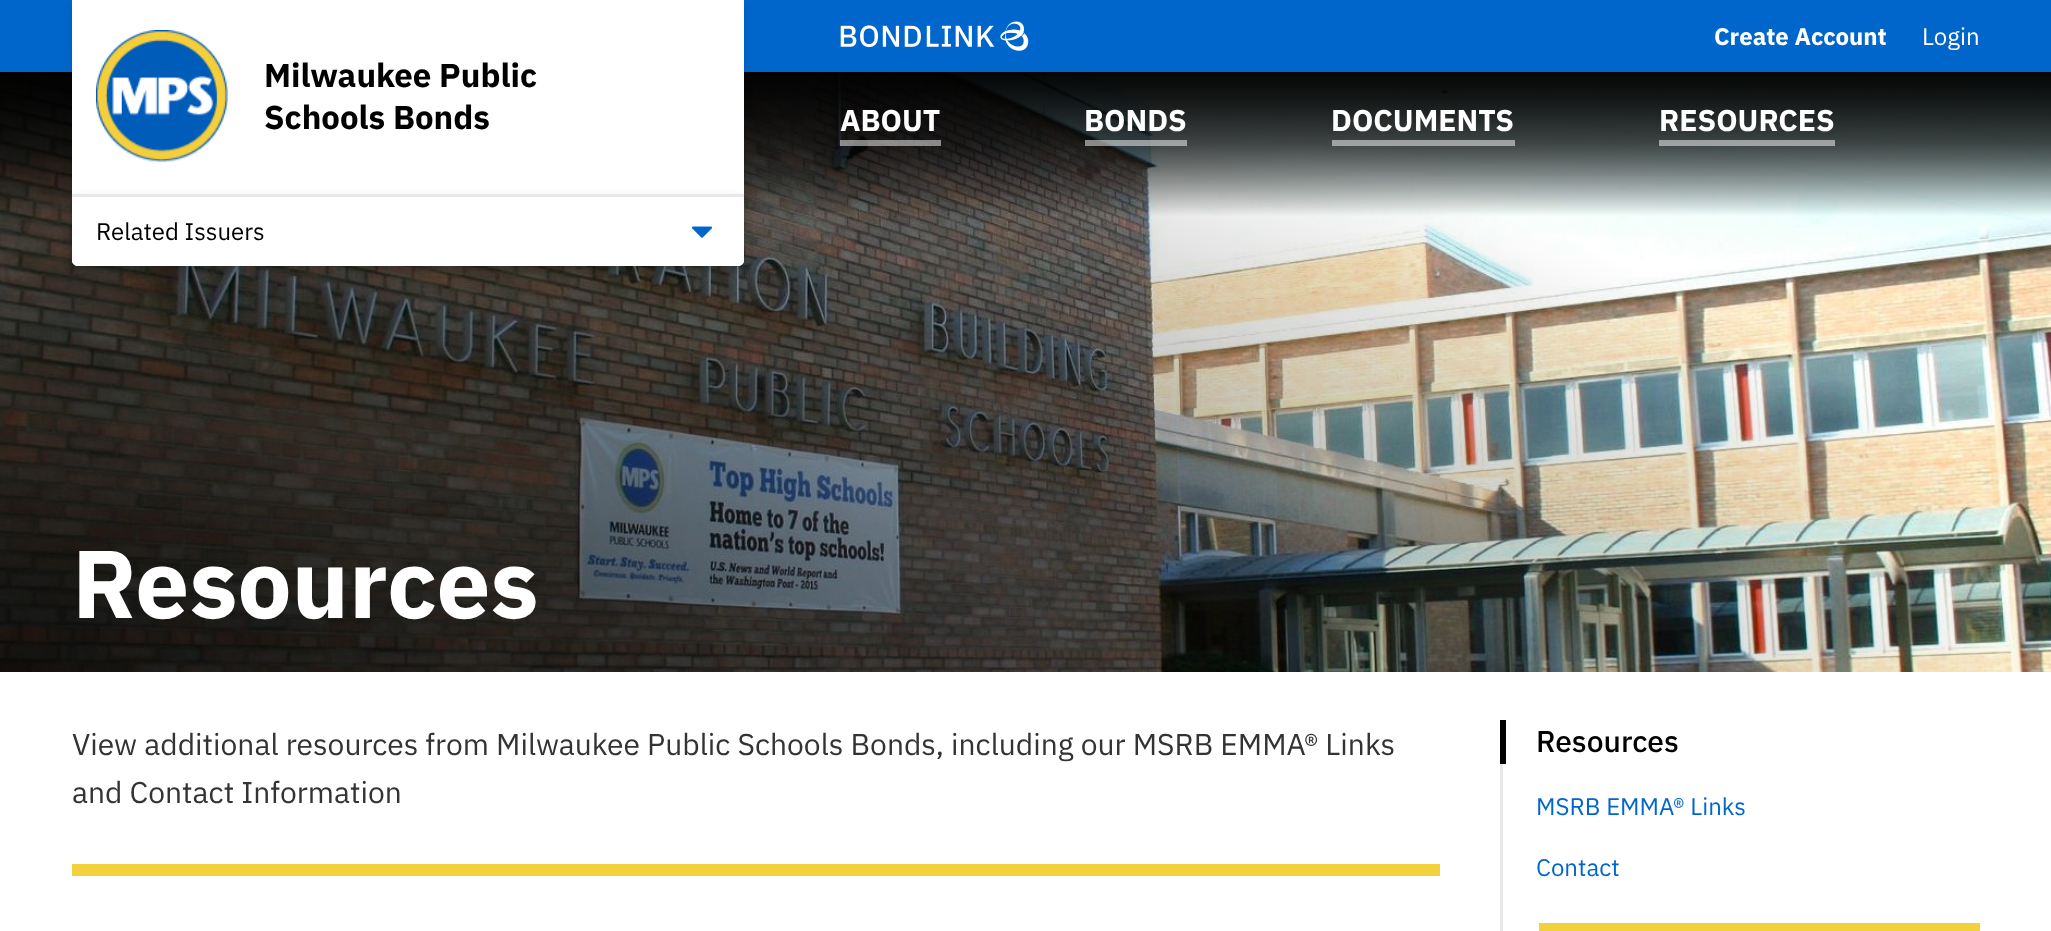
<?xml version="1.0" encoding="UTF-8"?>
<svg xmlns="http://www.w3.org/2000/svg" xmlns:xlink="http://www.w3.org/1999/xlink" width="2051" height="931">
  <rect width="100%" height="100%" fill="#ffffff" />
  <rect width="2051" height="72" fill="#0066cc" />
  <image x="840" y="21" width="189" height="30" xlink:href="image1.png" />
  <image x="0" y="72" width="2051" height="600" xlink:href="image4.png" />
  <rect x="72" y="3" width="672" height="266" rx="6" fill="#000000" fill-opacity="0.12" filter="blur(4.5px)" />
  <path d="M 72 0 h 672 v 260 c 0 3.5 -2.5 6 -6 6 h -660 c -3.5 0 -6 -2.5 -6 -6 z" fill="#ffffff" />
  <image x="96" y="30" width="132" height="132" xlink:href="image2.png" />
  <rect x="72" y="197" width="672" height="72" rx="6" fill="#000000" fill-opacity="0.12" filter="blur(4.5px)" />
  <path d="M 72 197 h 672 v 63 c 0 3.5 -2.5 6 -6 6 h -660 c -3.5 0 -6 -2.5 -6 -6 z" fill="#ffffff" />
  <rect x="72" y="194" width="672" height="3" fill="#e8e8e8" />
  <image x="691" y="226" width="22" height="12" xlink:href="image3.png" />
  <rect x="840" y="140" width="101" height="6" fill="#ffffff" fill-opacity="0.5" />
  <rect x="1085" y="140" width="102" height="6" fill="#ffffff" fill-opacity="0.5" />
  <rect x="1332" y="140" width="183" height="6" fill="#ffffff" fill-opacity="0.5" />
  <rect x="1659" y="140" width="176" height="6" fill="#ffffff" fill-opacity="0.5" />
  <rect x="1500" y="764" width="3" height="167" fill="#e8e8e8" />
  <rect x="72" y="864" width="1368" height="12" fill="#f3d13c" />
  <rect x="1500" y="720" width="6" height="44" fill="#000000" />
  <rect x="1539" y="923" width="441" height="8" fill="#f3d13c" />
  <text x="1714" y="45" style="font-family: IBM Plex Sans; font-size: 24px; font-weight: bold; fill: #ffffff">Create Account</text>
  <text x="1922" y="45" style="font-family: IBM Plex Sans; font-size: 24px; fill: #ffffff">Login</text>
  <text x="264" y="87" style="font-family: IBM Plex Sans; font-size: 33px; font-weight: bold; fill: #000000">Milwaukee Public</text>
  <text x="264" y="129" style="font-family: IBM Plex Sans; font-size: 33px; font-weight: bold; fill: #000000">Schools Bonds</text>
  <text x="96" y="240" style="font-family: IBM Plex Sans; font-size: 24px; fill: #000000">Related Issuers</text>
  <text x="840" y="131" style="font-family: IBM Plex Sans; font-size: 30px; font-weight: bold; fill: #ffffff">ABOUT</text>
  <text x="1084" y="131" style="font-family: IBM Plex Sans; font-size: 30px; font-weight: bold; fill: #ffffff">BONDS</text>
  <text x="1331" y="131" style="font-family: IBM Plex Sans; font-size: 30px; font-weight: bold; fill: #ffffff">DOCUMENTS</text>
  <text x="1659" y="131" style="font-family: IBM Plex Sans; font-size: 30px; font-weight: bold; fill: #ffffff">RESOURCES</text>
  <text x="72" y="618" style="font-family: IBM Plex Sans; font-size: 96px; font-weight: bold; fill: #ffffff">Resources</text>
  <text x="72" y="755" style="font-family: IBM Plex Sans; font-size: 30px; fill: #333333">View additional resources from Milwaukee Public Schools Bonds, including our MSRB EMMA® Links</text>
  <text x="72" y="803" style="font-family: IBM Plex Sans; font-size: 30px; fill: #333333">and Contact Information</text>
  <text x="1536" y="752" style="font-family: IBM Plex Sans; font-size: 30px; font-weight: 500; fill: #000000">Resources</text>
  <text x="1536" y="815" style="font-family: IBM Plex Sans; font-size: 24px; fill: #0066cc">MSRB EMMA® Links</text>
  <text x="1536" y="876" style="font-family: IBM Plex Sans; font-size: 24px; fill: #0066cc">Contact</text>
</svg>
